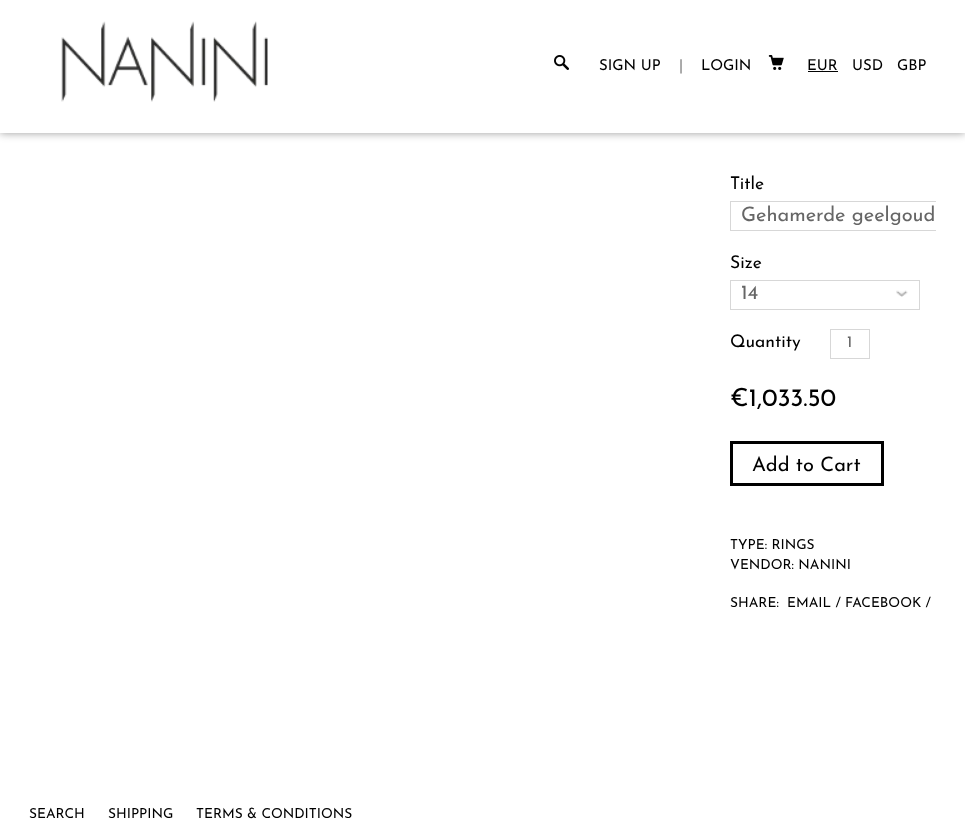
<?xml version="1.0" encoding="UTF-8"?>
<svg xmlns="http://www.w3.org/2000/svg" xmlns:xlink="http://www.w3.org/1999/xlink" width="965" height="834">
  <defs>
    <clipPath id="clip1"><rect x="730" y="171" width="206" height="158" /></clipPath>
  </defs>
  <rect width="100%" height="100%" fill="#ffffff" />
  <rect width="965" height="133" fill="#000000" fill-opacity="0.4" filter="blur(4.5px)" />
  <rect width="965" height="133" fill="#ffffff" />
  <image x="61" y="21" width="207" height="81" xlink:href="image1.png" />
  <image x="554" y="55" width="15" height="15" xlink:href="image2.png" />
  <image x="768" y="55" width="16" height="15" xlink:href="image3.png" />
  <rect x="808" y="71" width="30" height="1" fill="#030303" />
  <g clip-path="url(#clip1)">
    <rect x="730.5" y="201.5" width="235" height="29" fill="none" stroke="#d7d7d7" />
  </g>
  <rect x="730.5" y="280.5" width="189" height="29" fill="none" stroke="#d7d7d7" />
  <image x="896" y="290" width="12" height="7" xlink:href="image4.png" />
  <rect x="830.5" y="329.5" width="39" height="29" fill="none" stroke="#d7d7d7" />
  <rect x="731.5" y="442.5" width="151" height="42" fill="none" stroke="#000000" stroke-width="3" />
  <text x="599" y="70" style="font-family: Josefin Sans; font-size: 15px; fill: #000000">SIGN UP</text>
  <text x="679" y="70" style="font-family: Josefin Sans; font-size: 15px; fill: #818181">|</text>
  <text x="701" y="70" style="font-family: Josefin Sans; font-size: 15px; fill: #000000">LOGIN</text>
  <text x="807" y="70" style="font-family: Josefin Sans; font-size: 15px; fill: #000000">EUR</text>
  <text x="852" y="70" style="font-family: Josefin Sans; font-size: 15px; fill: #000000">USD</text>
  <text x="897" y="70" style="font-family: Josefin Sans; font-size: 15px; fill: #000000">GBP</text>
  <text x="730" y="189" style="font-family: Josefin Sans; font-size: 17.5px; fill: #000000">Title</text>
  <text x="741" y="221" style="font-family: Josefin Sans; font-size: 20px; fill: #666666">Gehamerde geelgoud</text>
  <text x="730" y="268" style="font-family: Josefin Sans; font-size: 17.5px; fill: #000000">Size</text>
  <text x="741" y="299" style="font-family: Josefin Sans; font-size: 20px; fill: #666666">14</text>
  <text x="730" y="347" style="font-family: Josefin Sans; font-size: 17.5px; fill: #000000">Quantity</text>
  <text x="847" y="347" style="font-family: Josefin Sans; font-size: 16px; fill: #666666">1</text>
  <text x="730" y="406" style="font-family: Josefin Sans; font-size: 25px; fill: #000000">€1,033.50</text>
  <text x="752" y="471" style="font-family: Josefin Sans; font-size: 20px; fill: #000000">Add to Cart</text>
  <text x="730" y="549" style="font-family: Josefin Sans; font-size: 13.75px; fill: #000000">TYPE: RINGS</text>
  <text x="730" y="569" style="font-family: Josefin Sans; font-size: 13.75px; fill: #000000">VENDOR: NANINI</text>
  <text x="730" y="607" style="font-family: Josefin Sans; font-size: 13.75px; fill: #000000">SHARE:</text>
  <text x="787" y="607" style="font-family: Josefin Sans; font-size: 13.75px; fill: #000000">EMAIL / FACEBOOK /</text>
  <text x="29" y="818" style="font-family: Josefin Sans; font-size: 13.75px; fill: #000000">SEARCH</text>
  <text x="108" y="818" style="font-family: Josefin Sans; font-size: 13.75px; fill: #000000">SHIPPING</text>
  <text x="196" y="818" style="font-family: Josefin Sans; font-size: 13.75px; fill: #000000">TERMS &amp; CONDITIONS</text>
</svg>
